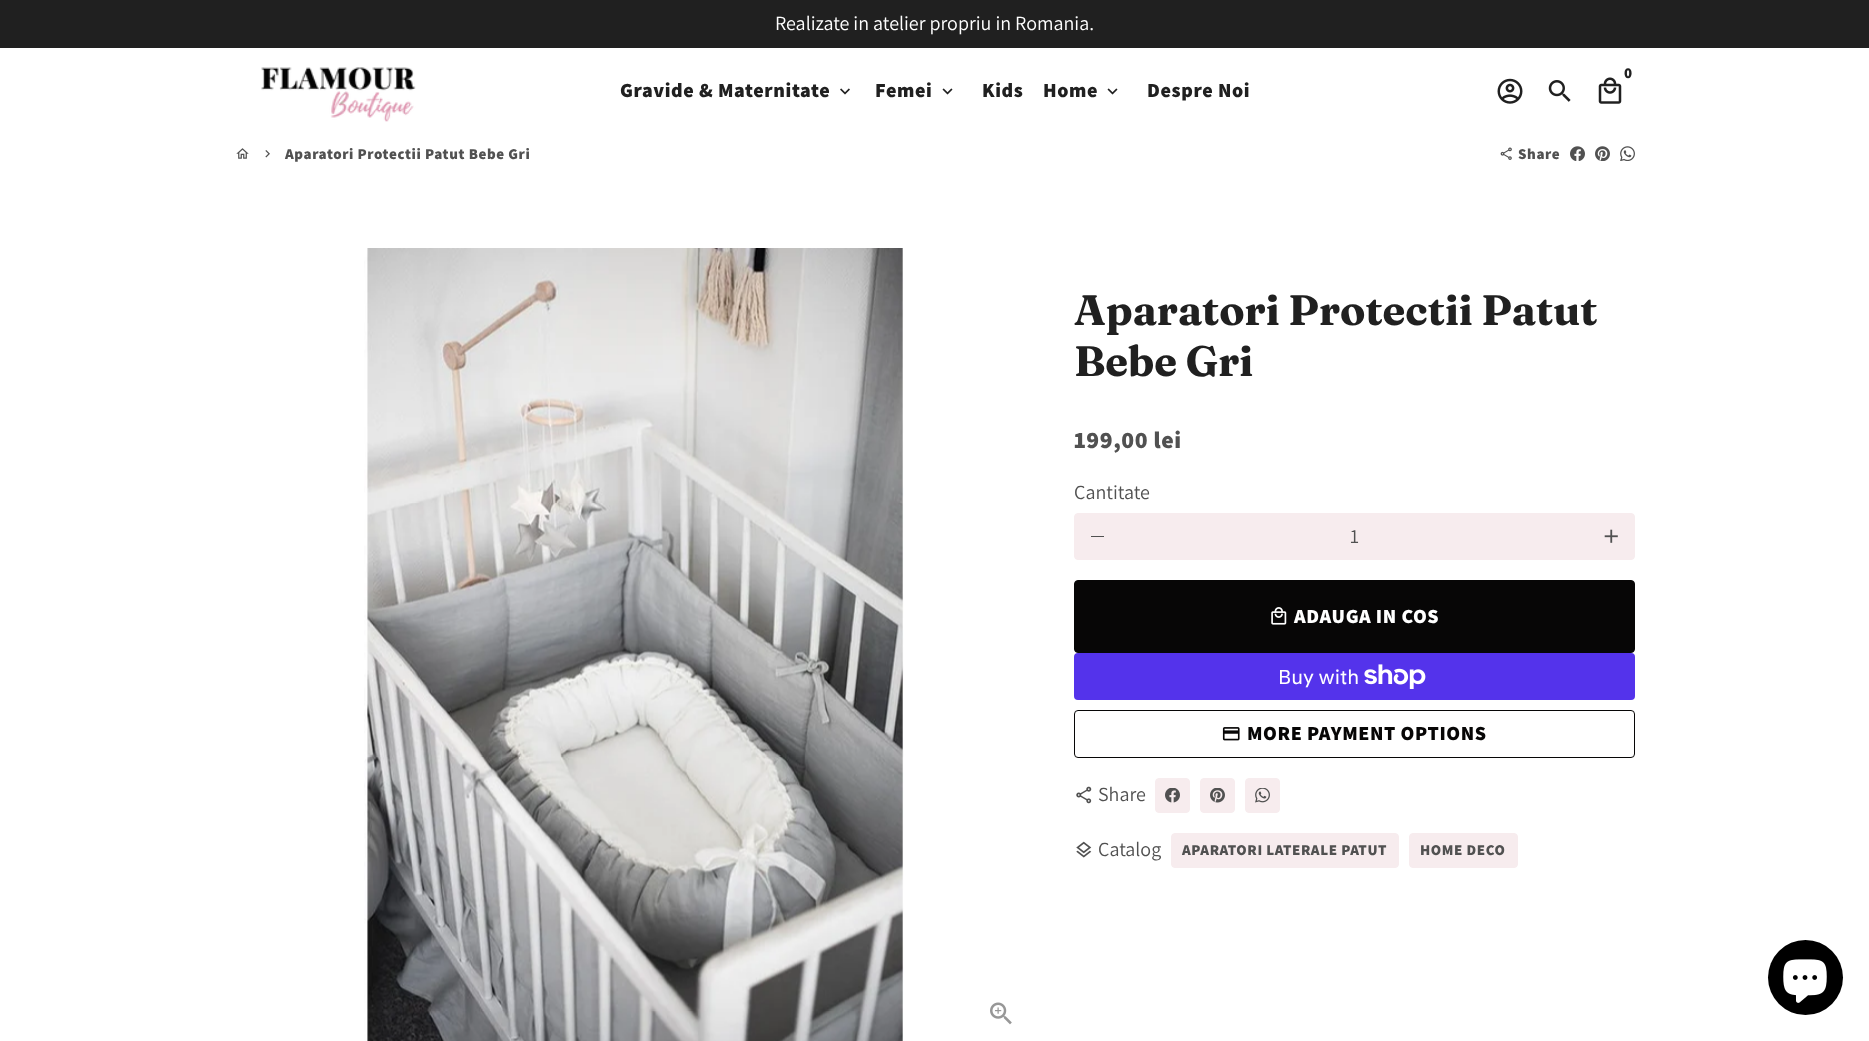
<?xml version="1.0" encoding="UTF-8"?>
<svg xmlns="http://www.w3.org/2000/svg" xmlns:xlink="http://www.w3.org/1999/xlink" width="1869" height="1041">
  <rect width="100%" height="100%" fill="#ffffff" />
  <rect width="1869" height="48" fill="#202020" />
  <image x="261" y="67" width="155" height="55" xlink:href="image1.png" />
  <image x="1598" y="77" width="24" height="27" xlink:href="image2.png" />
  <image x="1497" y="78" width="26" height="26" xlink:href="image3.png" />
  <image x="1548" y="80" width="23" height="22" xlink:href="image4.png" />
  <image x="840" y="88" width="10" height="7" xlink:href="image5.png" />
  <image x="942" y="88" width="11" height="7" xlink:href="image6.png" />
  <image x="1107" y="88" width="11" height="7" xlink:href="image6.png" />
  <image x="236" y="148" width="13" height="11" xlink:href="image7.png" />
  <image x="265" y="150" width="5" height="8" xlink:href="image8.png" />
  <image x="1500" y="147" width="12" height="13" xlink:href="image9.png" />
  <image x="1570" y="146" width="15" height="15" xlink:href="image10.png" />
  <image x="1595" y="146" width="15" height="15" xlink:href="image11.png" />
  <image x="1620" y="146" width="15" height="15" xlink:href="image12.png" />
  <image x="364" y="248" width="540" height="793" xlink:href="image13.png" />
  <image x="990" y="1002" width="22" height="23" xlink:href="image14.png" />
  <rect x="1074.5" y="513.5" width="560" height="46" rx="3.5" fill="#f7ecee" stroke="#f7ecee" />
  <rect x="1091" y="536" width="13" height="1" fill="#515151" />
  <image x="1604" y="529" width="14" height="14" xlink:href="image15.png" />
  <rect x="1074.5" y="580.5" width="560" height="72" rx="3.5" fill="#070606" stroke="#070606" />
  <image x="1271" y="607" width="16" height="18" xlink:href="image16.png" />
  <rect x="1074" y="653" width="561" height="47" rx="4" fill="#5433eb" />
  <image x="1364" y="664" width="62" height="25" xlink:href="image17.png" />
  <rect x="1074.5" y="710.5" width="560" height="47" rx="3.5" fill="none" stroke="#070606" />
  <image x="1222" y="727" width="18" height="14" xlink:href="image18.png" />
  <image x="1076" y="786" width="16" height="18" xlink:href="image19.png" />
  <rect x="1155.5" y="778.5" width="34" height="34" rx="3.5" fill="#f7ecee" stroke="#f7ecee" />
  <image x="1165" y="788" width="15" height="15" xlink:href="image20.png" />
  <rect x="1200.5" y="778.5" width="34" height="34" rx="3.5" fill="#f7ecee" stroke="#f7ecee" />
  <image x="1210" y="788" width="15" height="15" xlink:href="image21.png" />
  <rect x="1245.5" y="778.5" width="34" height="34" rx="3.5" fill="#f7ecee" stroke="#f7ecee" />
  <image x="1255" y="788" width="15" height="15" xlink:href="image22.png" />
  <image x="1076" y="841" width="16" height="17" xlink:href="image23.png" />
  <rect x="1171.5" y="833.5" width="227" height="34" rx="3.5" fill="#f7ecee" stroke="#f7ecee" />
  <rect x="1409.5" y="833.5" width="108" height="34" rx="3.5" fill="#f7ecee" stroke="#f7ecee" />
  <circle cx="1805.5" cy="977.5" r="37.5" fill="#000000" />
  <image x="1783" y="959" width="44" height="44" xlink:href="image24.png" />
  <text x="775" y="30" style="font-family: Assistant; font-size: 20px; fill: #ffffff">Realizate in atelier propriu in Romania.</text>
  <text x="1624" y="78" style="font-family: Assistant; font-size: 15px; font-weight: 800; fill: #202020">0</text>
  <text x="620" y="97" style="font-family: Assistant; font-size: 20px; font-weight: 800; letter-spacing: 0.6px; fill: #202020">Gravide &amp; Maternitate</text>
  <text x="875" y="97" style="font-family: Assistant; font-size: 20px; font-weight: 800; letter-spacing: 0.6px; fill: #202020">Femei</text>
  <text x="982" y="97" style="font-family: Assistant; font-size: 20px; font-weight: 800; letter-spacing: 0.6px; fill: #202020">Kids</text>
  <text x="1043" y="97" style="font-family: Assistant; font-size: 20px; font-weight: 800; letter-spacing: 0.6px; fill: #202020">Home</text>
  <text x="1147" y="97" style="font-family: Assistant; font-size: 20px; font-weight: 800; letter-spacing: 0.6px; fill: #202020">Despre Noi</text>
  <text x="285" y="159" style="font-family: Assistant; font-size: 15px; font-weight: 800; letter-spacing: 0.6px; fill: #515151">Aparatori Protectii Patut Bebe Gri</text>
  <text x="1518" y="159" style="font-family: Assistant; font-size: 15px; font-weight: 800; letter-spacing: 0.6px; fill: #515151">Share</text>
  <text x="1074" y="325" style="font-family: Fraunces; font-size: 42.5px; font-weight: bold; fill: #202020">Aparatori Protectii Patut</text>
  <text x="1074" y="376" style="font-family: Fraunces; font-size: 42.5px; font-weight: bold; fill: #202020">Bebe Gri</text>
  <text x="1074" y="448" style="font-family: Assistant; font-size: 23.75px; font-weight: 800; letter-spacing: 0.6px; fill: #515151">199,00 lei</text>
  <text x="1074" y="499" style="font-family: Assistant; font-size: 20px; fill: #515151">Cantitate</text>
  <text x="1350" y="543" style="font-family: Assistant; font-size: 20px; fill: #515151">1</text>
  <text x="1294" y="623" style="font-family: Assistant; font-size: 20px; font-weight: 800; letter-spacing: 0.6px; fill: #ffffff">ADAUGA IN COS</text>
  <text x="1278" y="684" style="font-family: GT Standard; font-size: 20px; fill: #ffffff">Buy with</text>
  <text x="1247" y="740" style="font-family: Assistant; font-size: 20px; font-weight: 800; letter-spacing: 0.6px; fill: #070606">MORE PAYMENT OPTIONS</text>
  <text x="1098" y="801" style="font-family: Assistant; font-size: 20px; fill: #515151">Share</text>
  <text x="1098" y="856" style="font-family: Assistant; font-size: 20px; fill: #515151">Catalog</text>
  <text x="1182" y="855" style="font-family: Assistant; font-size: 15px; font-weight: 800; letter-spacing: 0.6px; fill: #515151">APARATORI LATERALE PATUT</text>
  <text x="1420" y="855" style="font-family: Assistant; font-size: 15px; font-weight: 800; letter-spacing: 0.6px; fill: #515151">HOME DECO</text>
</svg>
